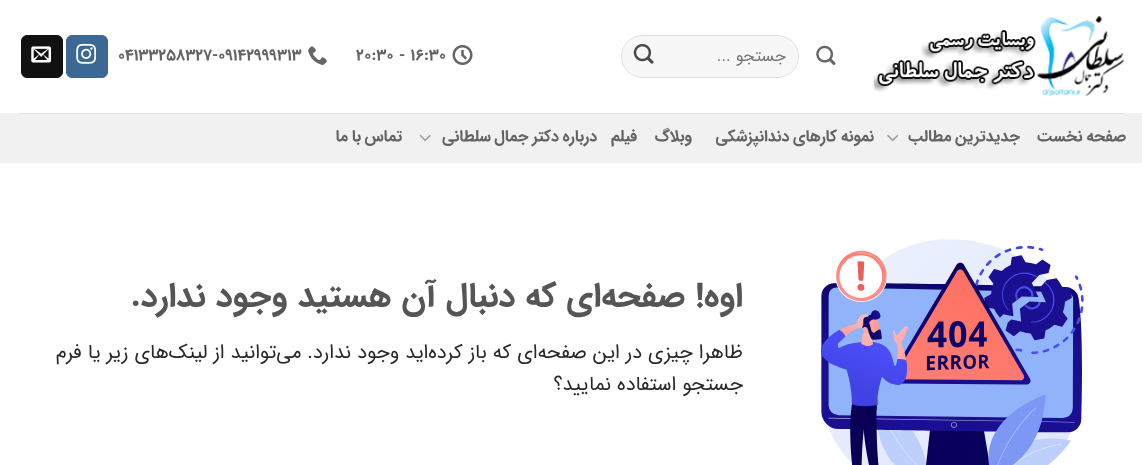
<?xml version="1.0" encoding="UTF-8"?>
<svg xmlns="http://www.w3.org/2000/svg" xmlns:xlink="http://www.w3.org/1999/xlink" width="1142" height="465">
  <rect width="100%" height="100%" fill="#ffffff" />
  <image x="873" y="15" width="251" height="81" xlink:href="image1.png" />
  <image x="816" y="45" width="20" height="20" xlink:href="image2.png" />
  <rect x="621" y="35" width="178" height="43" rx="21.5" fill="#f7f7f7" />
  <rect x="621.5" y="35.5" width="177" height="42" rx="21" fill="none" stroke="#000000" stroke-opacity="0.09" />
  <image x="633" y="43" width="21" height="21" xlink:href="image3.png" />
  <image x="452" y="45" width="21" height="20" xlink:href="image4.png" />
  <rect x="66.5" y="35.5" width="41" height="42" rx="5.5" fill="#3b6994" stroke="#3b6994" />
  <image x="76" y="43" width="20" height="21" xlink:href="image6.png" />
  <rect x="21.5" y="35.5" width="41" height="42" rx="5.5" fill="#111111" stroke="#111111" />
  <image x="31" y="46" width="21" height="17" xlink:href="image7.png" />
  <rect y="113" width="1142" height="50" fill="#f1f1f1" />
  <rect x="19" y="113" width="1105" height="1" fill="#e0e0e0" />
  <image x="887" y="134" width="12" height="8" xlink:href="image8.png" />
  <image x="419" y="134" width="12" height="8" xlink:href="image9.png" />
  <image x="820" y="239" width="264" height="226" xlink:href="image10.png" />
  <text x="786" y="61" style="font-family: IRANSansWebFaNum; font-size: 16.5px; direction: rtl; fill: #757575">جستجو ...</text>
  <text x="356" y="60" style="font-family: IRANSansWebFaNum; font-size: 16px; font-weight: bold; letter-spacing: 0.3px; fill: #636363">20:30 - 16:30</text>
  <text x="118" y="60" style="font-family: IRANSansWebFaNum; font-size: 16px; font-weight: bold; letter-spacing: 0.3px; fill: #636363">۰۴۱33258327-۰9142999313</text>
  <image x="308" y="46" width="19" height="19" xlink:href="image5.png" />
  <text x="1126" y="141" word-spacing="-1" style="font-family: IRANSansWebFaNum; font-size: 16px; font-weight: bold; letter-spacing: 0.3px; direction: rtl; fill: #636363">صفحه نخست</text>
  <text x="1020" y="141" word-spacing="-1" style="font-family: IRANSansWebFaNum; font-size: 16px; font-weight: bold; letter-spacing: 0.3px; direction: rtl; fill: #636363">جدیدترین مطالب</text>
  <text x="874" y="141" word-spacing="-1" style="font-family: IRANSansWebFaNum; font-size: 16px; font-weight: bold; letter-spacing: 0.3px; direction: rtl; fill: #636363">نمونه کارهای دندانپزشکی</text>
  <text x="692" y="141" style="font-family: IRANSansWebFaNum; font-size: 16px; font-weight: bold; letter-spacing: 0.3px; direction: rtl; fill: #636363">وبلاگ</text>
  <text x="637" y="141" style="font-family: IRANSansWebFaNum; font-size: 16px; font-weight: bold; letter-spacing: 0.3px; direction: rtl; fill: #636363">فیلم</text>
  <text x="597" y="141" word-spacing="-1" style="font-family: IRANSansWebFaNum; font-size: 16px; font-weight: bold; letter-spacing: 0.3px; direction: rtl; fill: #636363">درباره دکتر جمال سلطانی</text>
  <text x="402" y="141" word-spacing="-1" style="font-family: IRANSansWebFaNum; font-size: 16px; font-weight: bold; letter-spacing: 0.3px; direction: rtl; fill: #636363">تماس با ما</text>
  <text x="743" y="306" style="font-family: IRANSansWebFaNum; font-size: 34px; font-weight: bold; direction: rtl; fill: #555555">اوه! صفحه‌ای که دنبال آن هستید وجود ندارد.</text>
  <text x="743" y="358" style="font-family: IRANSansWebFaNum; font-size: 20px; direction: rtl; fill: #282828">ظاهرا چیزی در این صفحه‌ای که باز کرده‌اید وجود ندارد. می‌توانید از لینک‌های زیر یا فرم</text>
  <text x="743" y="390" style="font-family: IRANSansWebFaNum; font-size: 20px; direction: rtl; fill: #282828">جستجو استفاده نمایید؟</text>
</svg>
